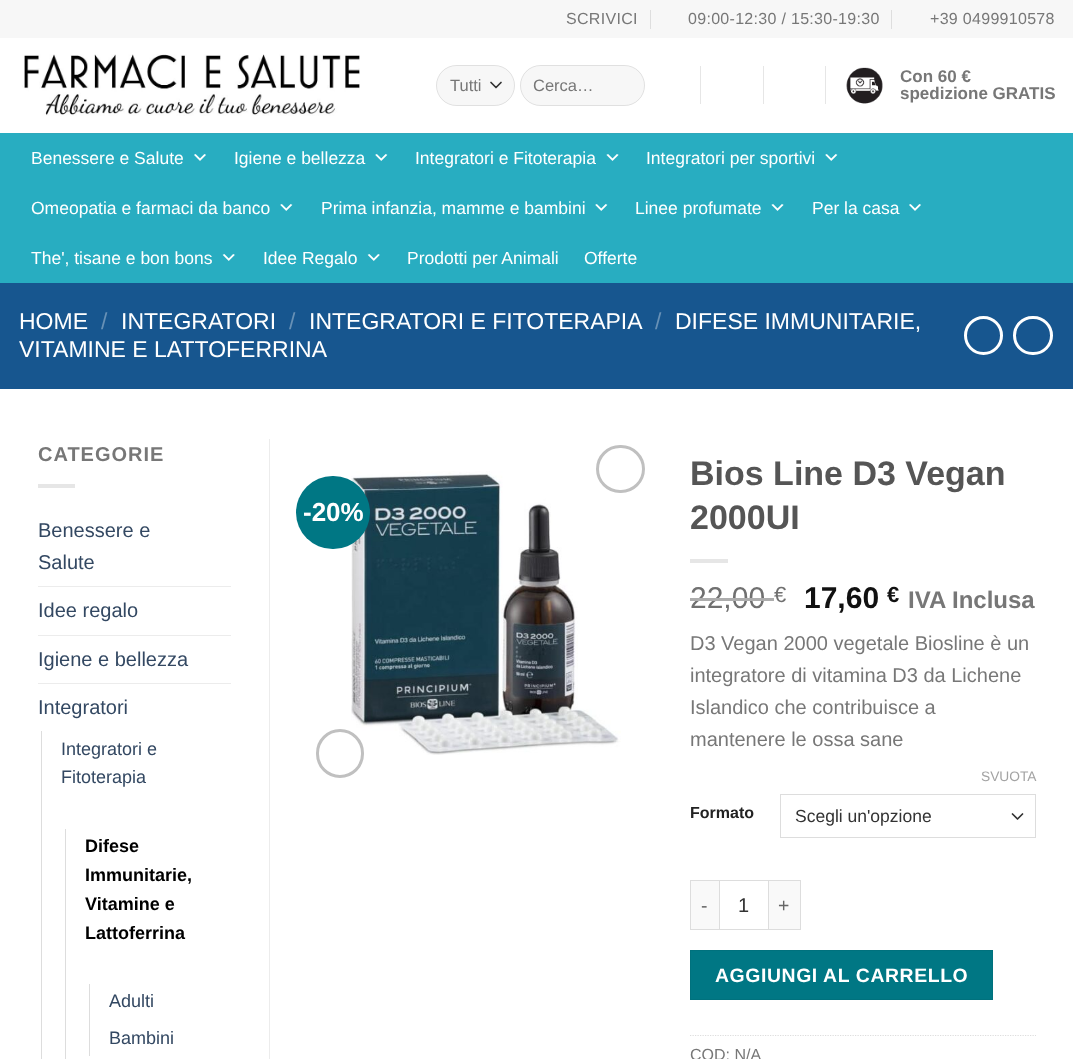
<?xml version="1.0" encoding="UTF-8"?>
<svg xmlns="http://www.w3.org/2000/svg" xmlns:xlink="http://www.w3.org/1999/xlink" width="1073" height="1059">
  <rect width="100%" height="100%" fill="#ffffff" />
  <rect width="1073" height="38" fill="#f7f7f7" />
  <rect x="650" y="10" width="1" height="19" fill="#dedede" />
  <rect x="891" y="10" width="1" height="19" fill="#dedede" />
  <image x="22" y="54" width="338" height="62" xlink:href="image1.png" />
  <rect x="436" y="65" width="79" height="41" rx="20.5" fill="#f7f7f7" />
  <path d="M 491 82.5 l 5 5 l 5 -5" fill="none" stroke="#333333" stroke-width="1.7" stroke-linecap="round" stroke-linejoin="round" />
  <rect x="436.5" y="65.5" width="78" height="40" rx="20" fill="none" stroke="#000000" stroke-opacity="0.09" />
  <rect x="520" y="65" width="125" height="41" rx="20.5" fill="#f7f7f7" />
  <rect x="520.5" y="65.5" width="124" height="40" rx="20" fill="none" stroke="#000000" stroke-opacity="0.09" />
  <rect x="700" y="66" width="1" height="38" fill="#e6e6e6" />
  <rect x="763" y="66" width="1" height="38" fill="#e6e6e6" />
  <rect x="825" y="66" width="1" height="38" fill="#e6e6e6" />
  <image x="846" y="67" width="37" height="37" xlink:href="image2.png" />
  <rect y="133" width="1073" height="150" fill="#28adc1" />
  <rect x="19" y="133" width="1036" height="1" fill="#30a8ba" />
  <image x="194" y="154" width="12" height="7" xlink:href="image3.png" />
  <image x="375" y="154" width="13" height="7" xlink:href="image4.png" />
  <image x="606" y="154" width="13" height="7" xlink:href="image5.png" />
  <image x="825" y="154" width="13" height="7" xlink:href="image4.png" />
  <image x="280" y="204" width="13" height="7" xlink:href="image4.png" />
  <image x="595" y="204" width="13" height="7" xlink:href="image4.png" />
  <image x="771" y="204" width="13" height="7" xlink:href="image5.png" />
  <image x="909" y="204" width="12" height="7" xlink:href="image3.png" />
  <image x="222" y="254" width="13" height="7" xlink:href="image6.png" />
  <image x="367" y="254" width="13" height="7" xlink:href="image6.png" />
  <rect y="283" width="1073" height="106" fill="#17568f" />
  <circle cx="983.5" cy="335.5" r="18" fill="none" stroke="#ffffff" stroke-width="3" />
  <rect x="1014.5" y="317.5" width="37" height="36" rx="18" fill="none" stroke="#ffffff" stroke-width="3" />
  <rect x="38" y="484" width="37" height="4" fill="#e6e6e6" />
  <rect x="38" y="586" width="193" height="1" fill="#ececec" />
  <rect x="38" y="635" width="193" height="1" fill="#ececec" />
  <rect x="38" y="683" width="193" height="1" fill="#ececec" />
  <rect x="41" y="731" width="1" height="328" fill="#dddddd" />
  <rect x="65" y="829" width="1" height="230" fill="#dddddd" />
  <rect x="89" y="984" width="1" height="72" fill="#dddddd" />
  <rect x="269" y="439" width="1" height="620" fill="#ececec" />
  <image x="351" y="471" width="270" height="284" xlink:href="image7.png" />
  <rect x="597.5" y="446.5" width="46" height="45" rx="22.5" fill="none" stroke="#c0c0c0" stroke-width="3" />
  <rect x="296" y="476" width="74" height="73" rx="36.5" fill="#007784" />
  <rect x="317.5" y="730.5" width="45" height="46" rx="22.5" fill="none" stroke="#c0c0c0" stroke-width="3" />
  <rect x="690" y="559" width="38" height="4" fill="#e6e6e6" />
  <path d="M 1012.5 814 l 5 5 l 5 -5" fill="none" stroke="#333333" stroke-width="1.7" stroke-linecap="round" stroke-linejoin="round" />
  <rect x="780.5" y="794.5" width="255" height="43" fill="none" stroke="#dddddd" />
  <rect x="691" y="881" width="28" height="48" fill="#f9f9f9" />
  <rect x="690" y="880" width="29" height="1" fill="#dddddd" />
  <rect x="690" y="929" width="29" height="1" fill="#dddddd" />
  <rect x="690" y="880" width="1" height="50" fill="#dddddd" />
  <rect x="719.5" y="880.5" width="49" height="49" fill="none" stroke="#dddddd" />
  <rect x="769" y="881" width="31" height="48" fill="#f9f9f9" />
  <rect x="769" y="880" width="32" height="1" fill="#dddddd" />
  <rect x="800" y="880" width="1" height="50" fill="#dddddd" />
  <rect x="769" y="929" width="32" height="1" fill="#dddddd" />
  <rect x="690.5" y="950.5" width="302" height="49" fill="#007784" stroke="#00717d" />
  <path d="M 690 1035.5 h 346" fill="none" stroke="#dddddd" stroke-width="1.2" stroke-dasharray="1.25 1.25" />
  <text x="566" y="24" style="font-family: Liberation Sans; font-size: 16px; letter-spacing: 0.3px; fill: #777777">SCRIVICI</text>
  <text x="688" y="24" style="font-family: Liberation Sans; font-size: 16px; letter-spacing: 0.3px; fill: #777777">09:00-12:30 / 15:30-19:30</text>
  <text x="930" y="24" style="font-family: Liberation Sans; font-size: 16px; letter-spacing: 0.3px; fill: #777777">+39 0499910578</text>
  <text x="450" y="91" style="font-family: Liberation Sans; font-size: 16.5px; fill: #777777">Tutti</text>
  <text x="533" y="91" style="font-family: Liberation Sans; font-size: 16.5px; fill: #777777">Cerca…</text>
  <text x="900" y="82" style="font-family: Liberation Sans; font-size: 17px; font-weight: bold; fill: #777777">Con 60 €</text>
  <text x="900" y="99" style="font-family: Liberation Sans; font-size: 17px; font-weight: bold; fill: #777777">spedizione GRATIS</text>
  <text x="31" y="164" style="font-family: Liberation Sans; font-size: 17.5px; fill: #ffffff">Benessere e Salute</text>
  <text x="234" y="164" style="font-family: Liberation Sans; font-size: 17.5px; fill: #ffffff">Igiene e bellezza</text>
  <text x="415" y="164" style="font-family: Liberation Sans; font-size: 17.5px; fill: #ffffff">Integratori e Fitoterapia</text>
  <text x="646" y="164" style="font-family: Liberation Sans; font-size: 17.5px; fill: #ffffff">Integratori per sportivi</text>
  <text x="31" y="214" style="font-family: Liberation Sans; font-size: 17.5px; fill: #ffffff">Omeopatia e farmaci da banco</text>
  <text x="321" y="214" style="font-family: Liberation Sans; font-size: 17.5px; fill: #ffffff">Prima infanzia, mamme e bambini</text>
  <text x="635" y="214" style="font-family: Liberation Sans; font-size: 17.5px; fill: #ffffff">Linee profumate</text>
  <text x="812" y="214" style="font-family: Liberation Sans; font-size: 17.5px; fill: #ffffff">Per la casa</text>
  <text x="31" y="264" style="font-family: Liberation Sans; font-size: 17.5px; fill: #ffffff">The', tisane e bon bons</text>
  <text x="263" y="264" style="font-family: Liberation Sans; font-size: 17.5px; fill: #ffffff">Idee Regalo</text>
  <text x="407" y="264" style="font-family: Liberation Sans; font-size: 17.5px; fill: #ffffff">Prodotti per Animali</text>
  <text x="584" y="264" style="font-family: Liberation Sans; font-size: 17.5px; fill: #ffffff">Offerte</text>
  <text x="19" y="329" style="font-family: Liberation Sans; font-size: 23px; fill: #ffffff">HOME</text>
  <text x="101" y="329" style="font-family: Liberation Sans; font-size: 23px; fill: #6891b6">/</text>
  <text x="121" y="329" style="font-family: Liberation Sans; font-size: 23px; fill: #ffffff">INTEGRATORI</text>
  <text x="289" y="329" style="font-family: Liberation Sans; font-size: 23px; fill: #6891b6">/</text>
  <text x="309" y="329" style="font-family: Liberation Sans; font-size: 23px; fill: #ffffff">INTEGRATORI E FITOTERAPIA</text>
  <text x="655" y="329" style="font-family: Liberation Sans; font-size: 23px; fill: #6891b6">/</text>
  <text x="675" y="329" style="font-family: Liberation Sans; font-size: 23px; fill: #ffffff">DIFESE IMMUNITARIE,</text>
  <text x="19" y="357" style="font-family: Liberation Sans; font-size: 23px; fill: #ffffff">VITAMINE E LATTOFERRINA</text>
  <text x="38" y="461" style="font-family: Liberation Sans; font-size: 20px; font-weight: bold; letter-spacing: 1px; fill: #777777">CATEGORIE</text>
  <text x="38" y="537" style="font-family: Liberation Sans; font-size: 20px; fill: #334862">Benessere e</text>
  <text x="38" y="569" style="font-family: Liberation Sans; font-size: 20px; fill: #334862">Salute</text>
  <text x="38" y="617" style="font-family: Liberation Sans; font-size: 20px; fill: #334862">Idee regalo</text>
  <text x="38" y="666" style="font-family: Liberation Sans; font-size: 20px; fill: #334862">Igiene e bellezza</text>
  <text x="38" y="714" style="font-family: Liberation Sans; font-size: 20px; fill: #334862">Integratori</text>
  <text x="61" y="755" style="font-family: Liberation Sans; font-size: 18px; fill: #334862">Integratori e</text>
  <text x="61" y="783" style="font-family: Liberation Sans; font-size: 18px; fill: #334862">Fitoterapia</text>
  <text x="85" y="852" style="font-family: Liberation Sans; font-size: 18px; font-weight: bold; fill: #000000">Difese</text>
  <text x="85" y="881" style="font-family: Liberation Sans; font-size: 18px; font-weight: bold; fill: #000000">Immunitarie,</text>
  <text x="85" y="910" style="font-family: Liberation Sans; font-size: 18px; font-weight: bold; fill: #000000">Vitamine e</text>
  <text x="85" y="939" style="font-family: Liberation Sans; font-size: 18px; font-weight: bold; fill: #000000">Lattoferrina</text>
  <text x="109" y="1007" style="font-family: Liberation Sans; font-size: 18px; fill: #334862">Adulti</text>
  <text x="109" y="1044" style="font-family: Liberation Sans; font-size: 18px; fill: #334862">Bambini</text>
  <text x="303" y="521" style="font-family: Liberation Sans; font-size: 26px; font-weight: bold; fill: #ffffff">-20%</text>
  <text x="690" y="485" style="font-family: Liberation Sans; font-size: 34px; font-weight: bold; fill: #555555">Bios Line D3 Vegan</text>
  <text x="690" y="529" style="font-family: Liberation Sans; font-size: 34px; font-weight: bold; fill: #555555">2000UI</text>
  <text x="690" y="608" style="font-family: Liberation Sans; font-size: 30px; fill: #707070">22,00</text>
  <rect x="690" y="598" width="84" height="3" fill="#adadad" />
  <text x="774" y="602" style="font-family: Liberation Sans; font-size: 22px; fill: #707070">€</text>
  <text x="804" y="608" style="font-family: Liberation Sans; font-size: 30px; font-weight: bold; fill: #111111">17,60</text>
  <text x="887" y="602" style="font-family: Liberation Sans; font-size: 22px; font-weight: bold; fill: #111111">€</text>
  <text x="908" y="608" style="font-family: Liberation Sans; font-size: 24px; font-weight: bold; fill: #777777">IVA Inclusa</text>
  <text x="690" y="650" style="font-family: Liberation Sans; font-size: 20px; fill: #777777">D3 Vegan 2000 vegetale Biosline è un</text>
  <text x="690" y="682" style="font-family: Liberation Sans; font-size: 20px; fill: #777777">integratore di vitamina D3 da Lichene</text>
  <text x="690" y="714" style="font-family: Liberation Sans; font-size: 20px; fill: #777777">Islandico che contribuisce a</text>
  <text x="690" y="746" style="font-family: Liberation Sans; font-size: 20px; fill: #777777">mantenere le ossa sane</text>
  <text x="690" y="818" style="font-family: Liberation Sans; font-size: 16px; font-weight: bold; fill: #222222">Formato</text>
  <text x="981" y="781" style="font-family: Liberation Sans; font-size: 13.75px; fill: #a3a3a3">SVUOTA</text>
  <text x="795" y="822" style="font-family: Liberation Sans; font-size: 17.5px; fill: #333333">Scegli un'opzione</text>
  <text x="701" y="912" style="font-family: Liberation Sans; font-size: 19.4px; letter-spacing: 0.6px; fill: #666666">-</text>
  <text x="738" y="912" style="font-family: Liberation Sans; font-size: 20px; fill: #333333">1</text>
  <text x="778" y="912" style="font-family: Liberation Sans; font-size: 19.4px; letter-spacing: 0.6px; fill: #666666">+</text>
  <text x="715" y="982" style="font-family: Liberation Sans; font-size: 19.4px; font-weight: bold; letter-spacing: 0.6px; fill: #ffffff">AGGIUNGI AL CARRELLO</text>
  <text x="690" y="1060" style="font-family: Liberation Sans; font-size: 16px; fill: #777777">COD: N/A</text>
</svg>
